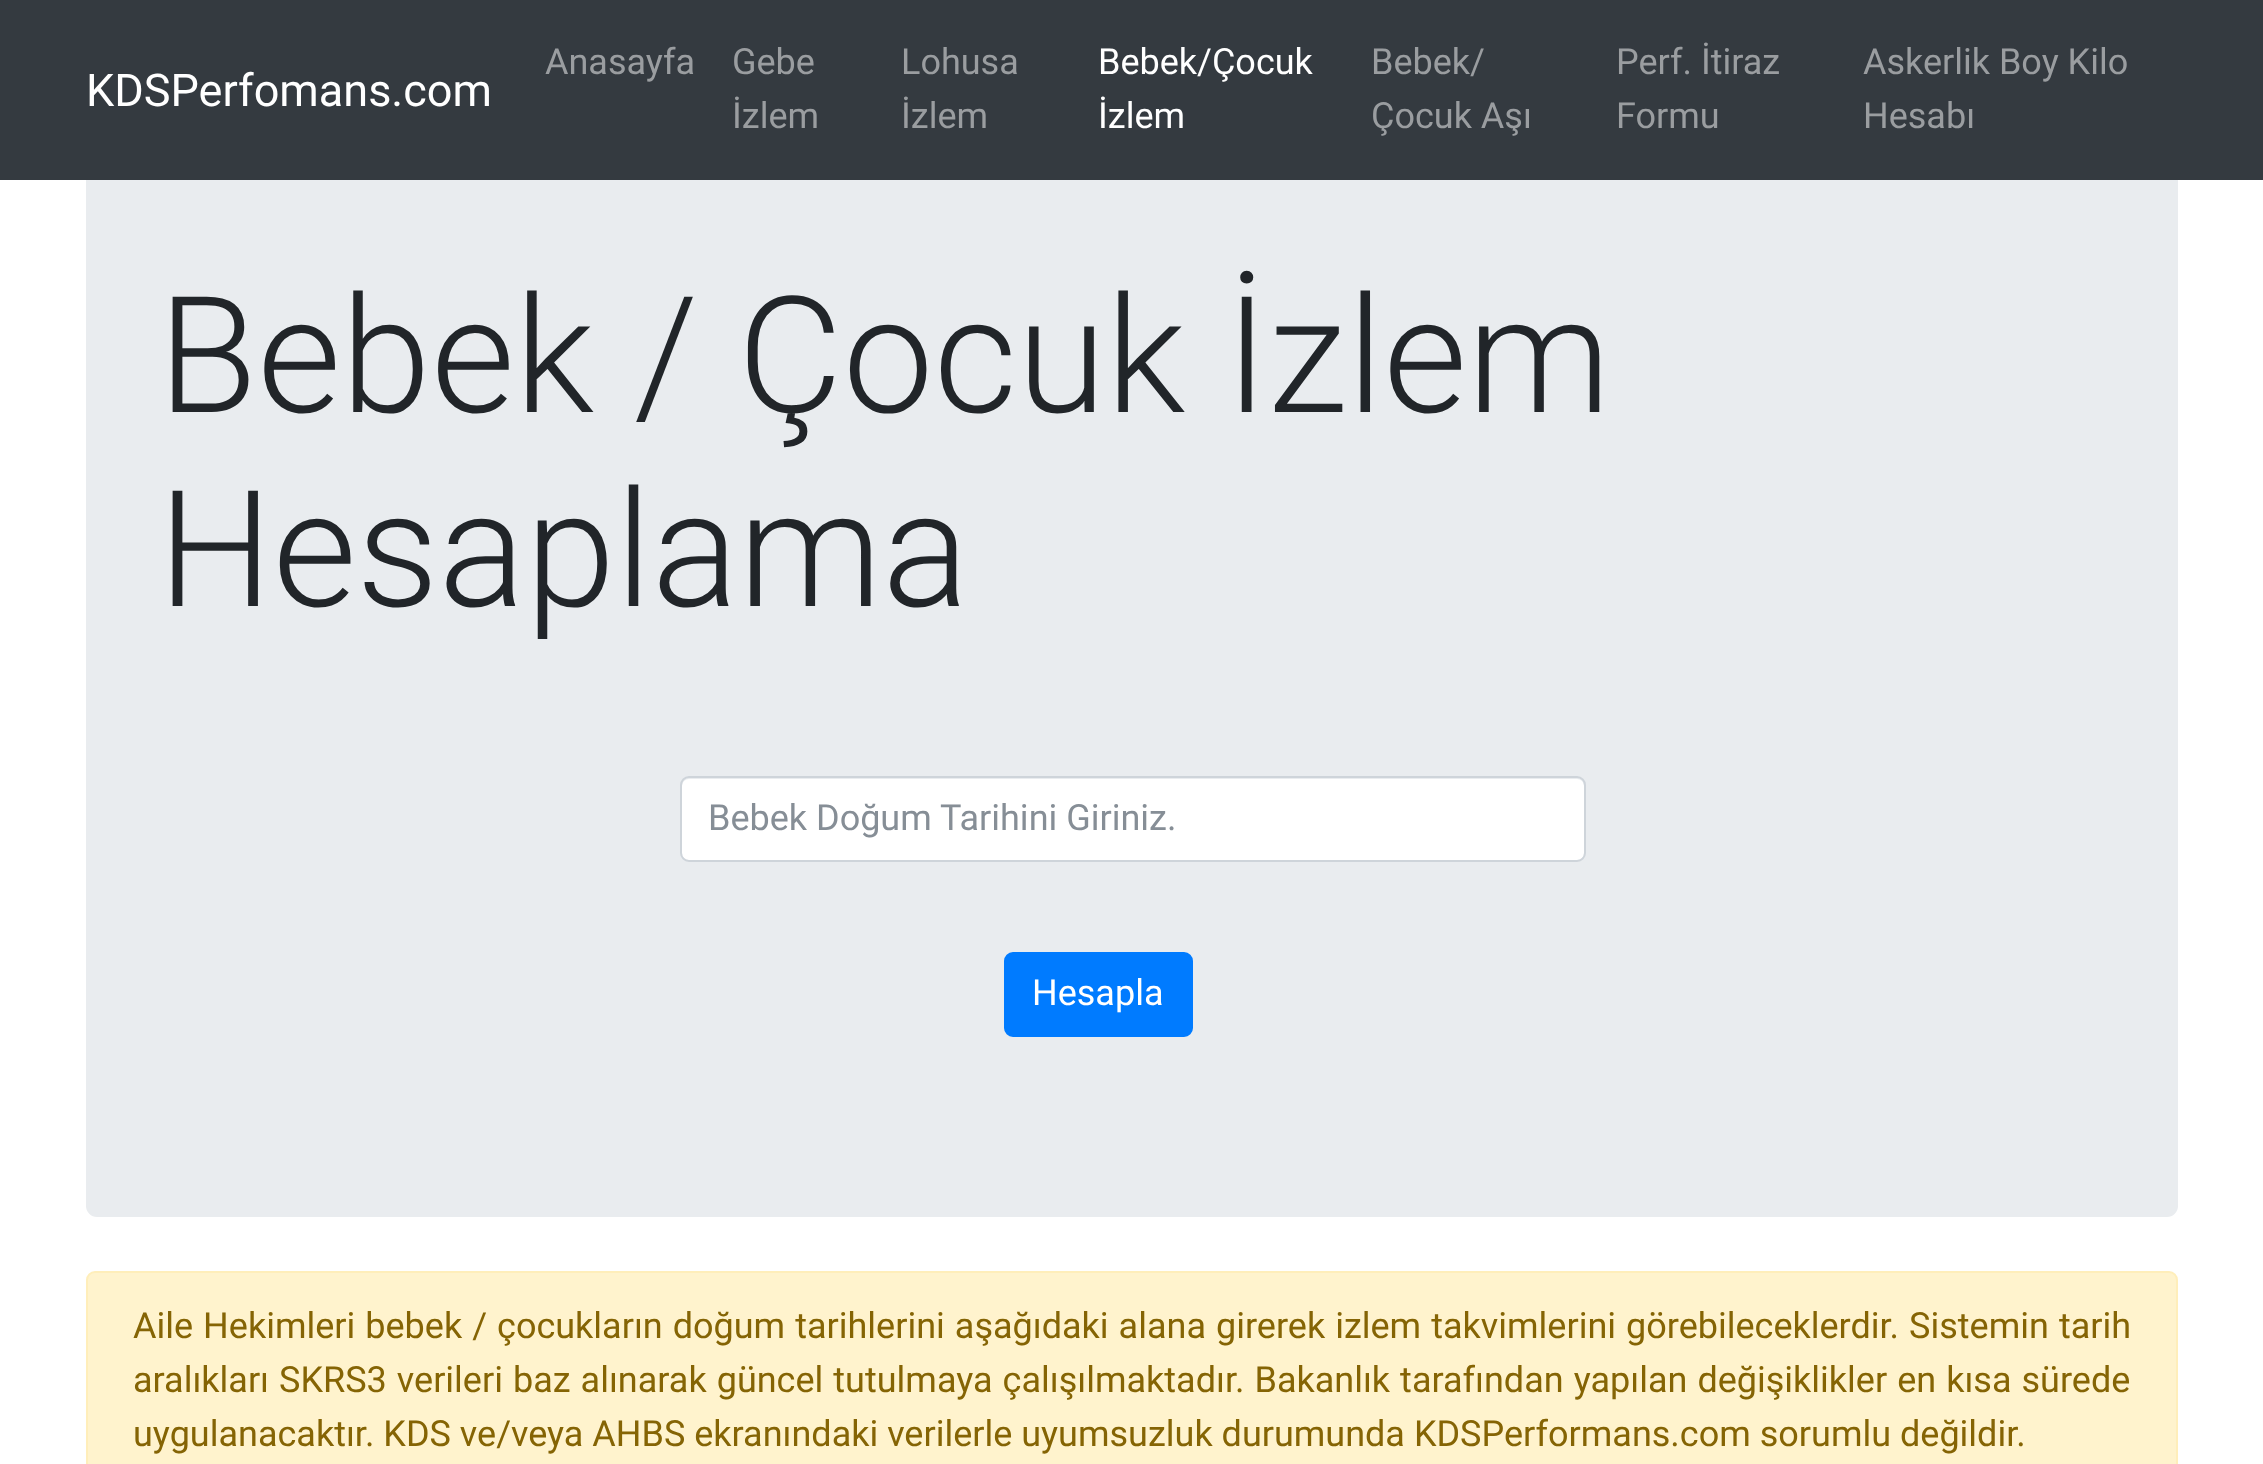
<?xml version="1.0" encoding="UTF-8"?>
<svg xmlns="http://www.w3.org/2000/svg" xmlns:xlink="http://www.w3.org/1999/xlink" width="2263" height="1464">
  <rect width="100%" height="100%" fill="#ffffff" />
  <rect x="86" y="117" width="2092" height="1100" rx="11" fill="#e9ecef" />
  <rect width="2263" height="180" fill="#343a40" />
  <rect x="682" y="779" width="902" height="81" rx="7" fill="#ffffff" />
  <rect x="681" y="777" width="904" height="84" rx="8" fill="none" stroke="#ced4da" stroke-width="2" />
  <rect x="1005" y="953" width="187" height="83" rx="8" fill="#007bff" stroke="#007bff" stroke-width="2" />
  <rect x="87" y="1272" width="2090" height="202" rx="8" fill="#fff3cd" stroke="#ffeeba" stroke-width="2" />
  <text x="86" y="106" style="font-family: Roboto; font-size: 45px; fill: #ffffff">KDSPerfomans.com</text>
  <text x="545" y="74" style="font-family: Roboto; font-size: 36px; fill: #9a9da0">Anasayfa</text>
  <text x="732" y="74" style="font-family: Roboto; font-size: 36px; fill: #9a9da0">Gebe</text>
  <text x="732" y="128" style="font-family: Roboto; font-size: 36px; fill: #9a9da0">İzlem</text>
  <text x="901" y="74" style="font-family: Roboto; font-size: 36px; fill: #9a9da0">Lohusa</text>
  <text x="901" y="128" style="font-family: Roboto; font-size: 36px; fill: #9a9da0">İzlem</text>
  <text x="1098" y="74" style="font-family: Roboto; font-size: 36px; fill: #ffffff">Bebek/Çocuk</text>
  <text x="1098" y="128" style="font-family: Roboto; font-size: 36px; fill: #ffffff">İzlem</text>
  <text x="1371" y="74" style="font-family: Roboto; font-size: 36px; fill: #9a9da0">Bebek/</text>
  <text x="1371" y="128" style="font-family: Roboto; font-size: 36px; fill: #9a9da0">Çocuk Aşı</text>
  <text x="1616" y="74" style="font-family: Roboto; font-size: 36px; fill: #9a9da0">Perf. İtiraz</text>
  <text x="1616" y="128" style="font-family: Roboto; font-size: 36px; fill: #9a9da0">Formu</text>
  <text x="1863" y="74" style="font-family: Roboto; font-size: 36px; fill: #9a9da0">Askerlik Boy Kilo</text>
  <text x="1863" y="128" style="font-family: Roboto; font-size: 36px; fill: #9a9da0">Hesabı</text>
  <text x="158" y="412" style="font-family: Roboto; font-size: 162px; font-weight: 300; fill: #212529">Bebek / Çocuk İzlem</text>
  <text x="158" y="606" style="font-family: Roboto; font-size: 162px; font-weight: 300; fill: #212529">Hesaplama</text>
  <text x="708" y="830" style="font-family: Roboto; font-size: 36px; fill: #868e96">Bebek Doğum Tarihini Giriniz.</text>
  <text x="1032" y="1005" style="font-family: Roboto; font-size: 36px; fill: #ffffff">Hesapla</text>
  <text x="133" y="1338" word-spacing="1.1" style="font-family: Roboto; font-size: 36px; fill: #856404">Aile Hekimleri bebek / çocukların doğum tarihlerini aşağıdaki alana girerek izlem takvimlerini görebileceklerdir. Sistemin tarih</text>
  <text x="133" y="1392" word-spacing="1.1" style="font-family: Roboto; font-size: 36px; fill: #856404">aralıkları SKRS3 verileri baz alınarak güncel tutulmaya çalışılmaktadır. Bakanlık tarafından yapılan değişiklikler en kısa sürede</text>
  <text x="133" y="1446" style="font-family: Roboto; font-size: 36px; fill: #856404">uygulanacaktır. KDS ve/veya AHBS ekranındaki verilerle uyumsuzluk durumunda KDSPerformans.com sorumlu değildir.</text>
</svg>
